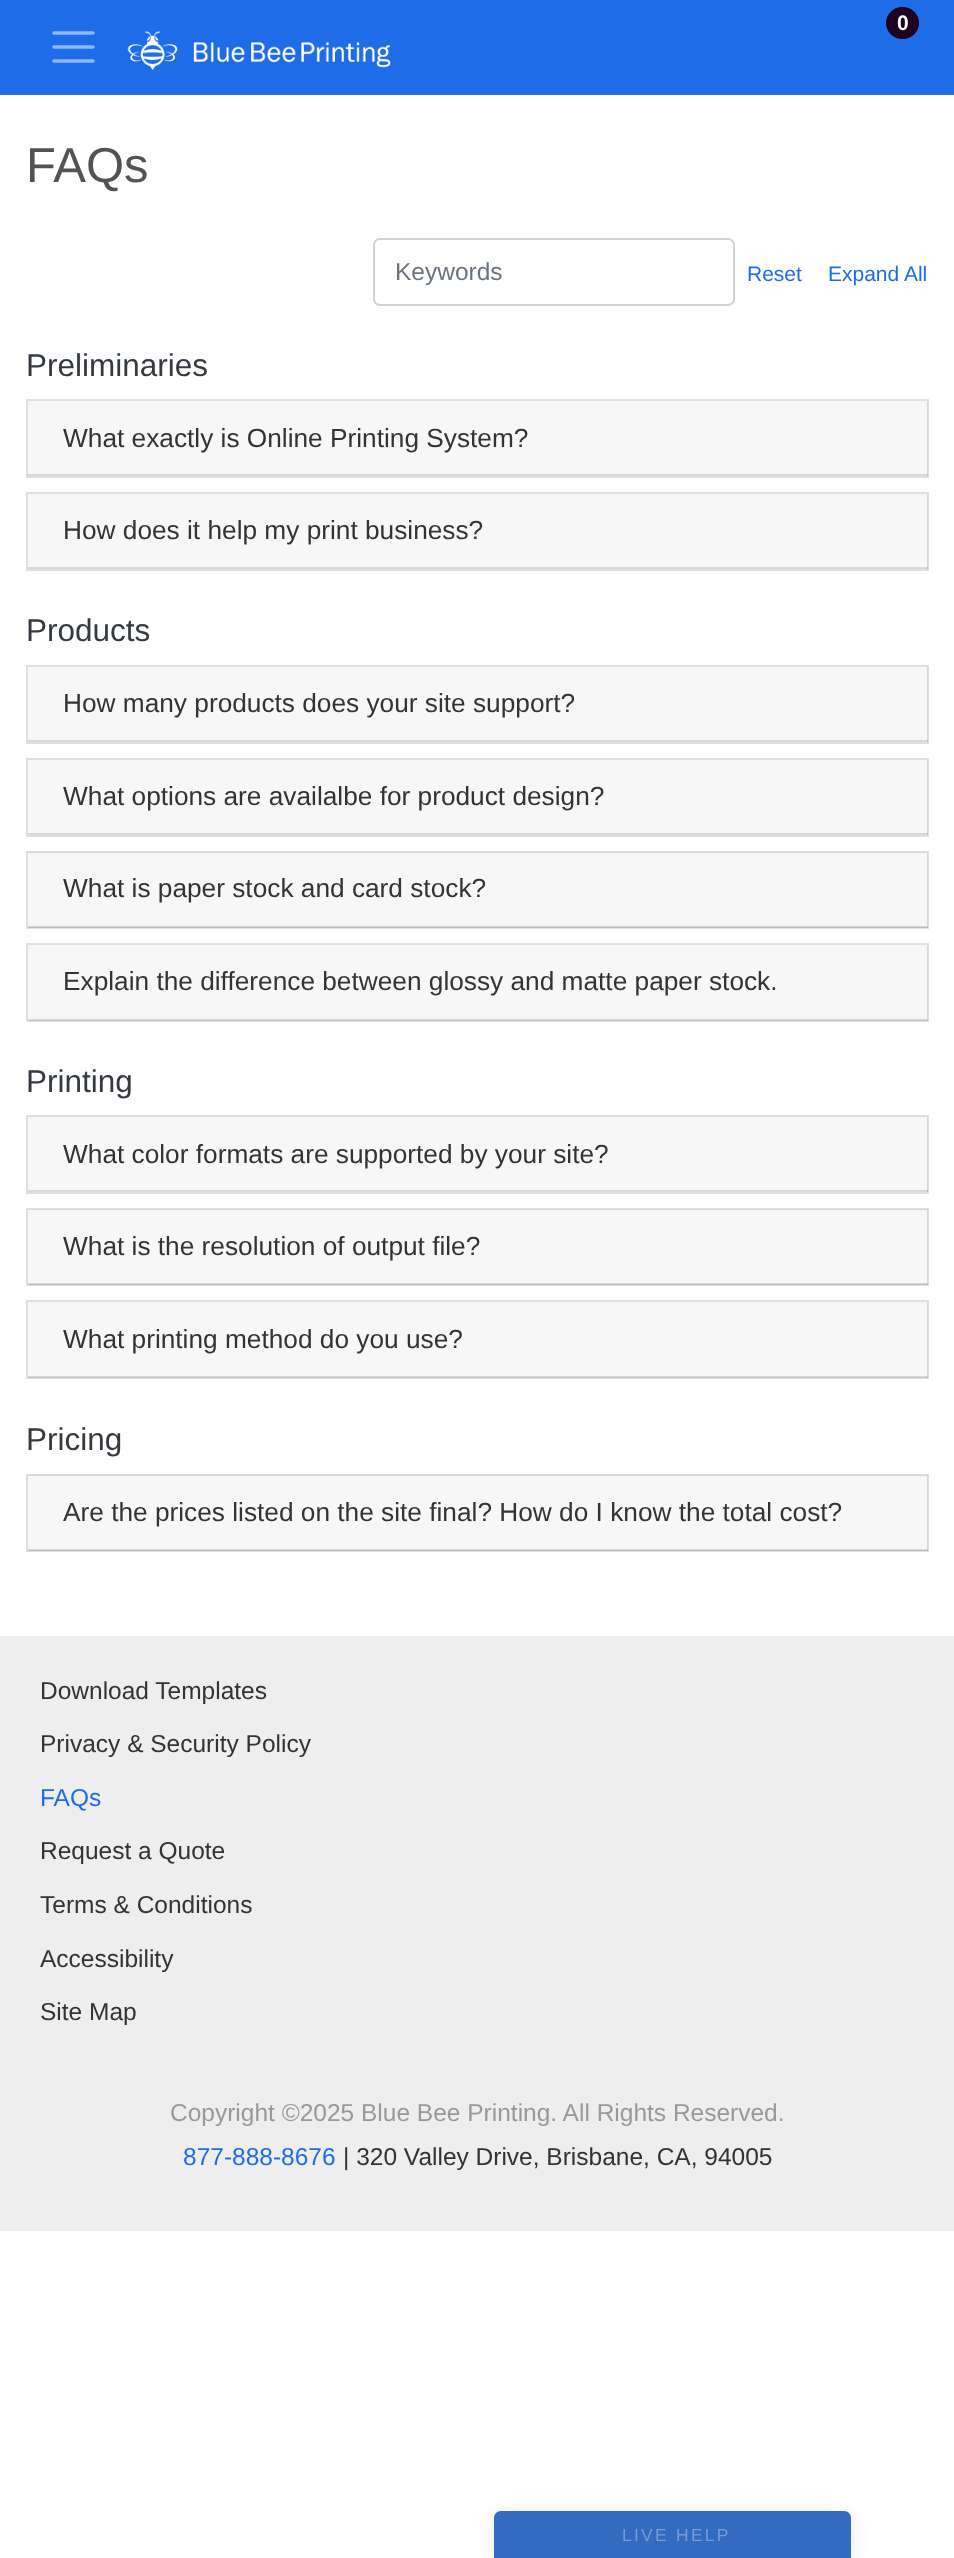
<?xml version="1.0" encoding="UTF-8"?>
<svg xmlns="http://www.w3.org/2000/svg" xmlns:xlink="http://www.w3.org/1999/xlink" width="954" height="2558">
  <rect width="100%" height="100%" fill="#ffffff" />
  <rect width="954" height="95" fill="#1f6ce8" />
  <rect x="886" y="7" width="33" height="32" rx="16" fill="#1f001f" />
  <path d="M 54 33 h 39 m -39 14 h 39 m -39 14 h 39" fill="none" stroke="#8fb6f4" stroke-width="3.5" stroke-linecap="round" />
  <image x="127" y="31" width="264" height="39" xlink:href="image1.png" />
  <rect x="374" y="239" width="360" height="66" rx="6" fill="none" stroke="#ced4da" stroke-width="2" />
  <rect x="27" y="400" width="901" height="77" fill="none" stroke="#dfdfdf" stroke-width="2" />
  <rect x="28" y="401" width="900" height="75" fill="#000000" fill-opacity="0.03" />
  <rect x="28" y="474" width="900" height="2" fill="#000000" fill-opacity="0.12" />
  <rect x="27" y="493" width="901" height="77" fill="none" stroke="#dfdfdf" stroke-width="2" />
  <rect x="28" y="494" width="900" height="75" fill="#000000" fill-opacity="0.03" />
  <rect x="28" y="567" width="900" height="2" fill="#000000" fill-opacity="0.12" />
  <rect x="27" y="666" width="901" height="77" fill="none" stroke="#dfdfdf" stroke-width="2" />
  <rect x="28" y="667" width="900" height="75" fill="#000000" fill-opacity="0.03" />
  <rect x="28" y="740" width="900" height="2" fill="#000000" fill-opacity="0.12" />
  <rect x="27" y="759" width="901" height="77" fill="none" stroke="#dfdfdf" stroke-width="2" />
  <rect x="28" y="760" width="900" height="75" fill="#000000" fill-opacity="0.03" />
  <rect x="28" y="833" width="900" height="2" fill="#000000" fill-opacity="0.12" />
  <rect x="27" y="852" width="901" height="76" fill="none" stroke="#dfdfdf" stroke-width="2" />
  <rect x="28" y="852" width="900" height="76" fill="#000000" fill-opacity="0.03" />
  <rect x="28" y="926" width="900" height="2" fill="#000000" fill-opacity="0.12" />
  <rect x="27" y="944" width="901" height="77" fill="none" stroke="#dfdfdf" stroke-width="2" />
  <rect x="28" y="945" width="900" height="75" fill="#000000" fill-opacity="0.03" />
  <rect x="28" y="1019" width="900" height="2" fill="#000000" fill-opacity="0.12" />
  <rect x="27" y="1116" width="901" height="77" fill="none" stroke="#dfdfdf" stroke-width="2" />
  <rect x="28" y="1117" width="900" height="75" fill="#000000" fill-opacity="0.03" />
  <rect x="28" y="1190" width="900" height="2" fill="#000000" fill-opacity="0.12" />
  <rect x="27" y="1209" width="901" height="76" fill="none" stroke="#dfdfdf" stroke-width="2" />
  <rect x="28" y="1209" width="900" height="76" fill="#000000" fill-opacity="0.03" />
  <rect x="28" y="1283" width="900" height="2" fill="#000000" fill-opacity="0.12" />
  <rect x="27" y="1301" width="901" height="77" fill="none" stroke="#dfdfdf" stroke-width="2" />
  <rect x="28" y="1302" width="900" height="75" fill="#000000" fill-opacity="0.03" />
  <rect x="28" y="1376" width="900" height="2" fill="#000000" fill-opacity="0.12" />
  <rect x="27" y="1475" width="901" height="76" fill="none" stroke="#dfdfdf" stroke-width="2" />
  <rect x="28" y="1475" width="900" height="76" fill="#000000" fill-opacity="0.03" />
  <rect x="28" y="1549" width="900" height="2" fill="#000000" fill-opacity="0.12" />
  <rect y="1636" width="954" height="595" fill="#eeeeee" />
  <rect x="494" y="2515" width="357" height="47" rx="7" fill="#000000" fill-opacity="0.1" filter="blur(9px)" />
  <path d="M 501 2511 h 343 c 4 0 7 3 7 7 v 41 h -357 v -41 c 0 -4 3 -7 7 -7 z" fill="#326bc0" />
  <text x="897" y="30" style="font-family: Liberation Sans; font-size: 21px; font-weight: bold; fill: #ffffff">0</text>
  <text x="26" y="182" style="font-family: Liberation Sans; font-size: 49px; fill: #535353">FAQs</text>
  <text x="395" y="280" style="font-family: Liberation Sans; font-size: 24.5px; fill: #6c757d">Keywords</text>
  <text x="747" y="281" style="font-family: Liberation Sans; font-size: 21px; fill: #1f6ce8">Reset</text>
  <text x="828" y="281" style="font-family: Liberation Sans; font-size: 21px; fill: #1f6ce8">Expand All</text>
  <text x="26" y="376" style="font-family: Liberation Sans; font-size: 31.5px; fill: #343a40">Preliminaries</text>
  <text x="63" y="447" style="font-family: Liberation Sans; font-size: 26.25px; fill: #333333">What exactly is Online Printing System?</text>
  <text x="63" y="539" style="font-family: Liberation Sans; font-size: 26.25px; fill: #333333">How does it help my print business?</text>
  <text x="26" y="641" style="font-family: Liberation Sans; font-size: 31.5px; fill: #343a40">Products</text>
  <text x="63" y="712" style="font-family: Liberation Sans; font-size: 26.25px; fill: #333333">How many products does your site support?</text>
  <text x="63" y="805" style="font-family: Liberation Sans; font-size: 26.25px; fill: #333333">What options are availalbe for product design?</text>
  <text x="63" y="897" style="font-family: Liberation Sans; font-size: 26.25px; fill: #333333">What is paper stock and card stock?</text>
  <text x="63" y="990" style="font-family: Liberation Sans; font-size: 26.25px; fill: #333333">Explain the difference between glossy and matte paper stock.</text>
  <text x="26" y="1092" style="font-family: Liberation Sans; font-size: 31.5px; fill: #343a40">Printing</text>
  <text x="63" y="1163" style="font-family: Liberation Sans; font-size: 26.25px; fill: #333333">What color formats are supported by your site?</text>
  <text x="63" y="1255" style="font-family: Liberation Sans; font-size: 26.25px; fill: #333333">What is the resolution of output file?</text>
  <text x="63" y="1348" style="font-family: Liberation Sans; font-size: 26.25px; fill: #333333">What printing method do you use?</text>
  <text x="26" y="1450" style="font-family: Liberation Sans; font-size: 31.5px; fill: #343a40">Pricing</text>
  <text x="63" y="1521" style="font-family: Liberation Sans; font-size: 26.25px; fill: #333333">Are the prices listed on the site final? How do I know the total cost?</text>
  <text x="40" y="1699" style="font-family: Liberation Sans; font-size: 24.5px; fill: #333333">Download Templates</text>
  <text x="40" y="1752" style="font-family: Liberation Sans; font-size: 24.5px; fill: #333333">Privacy &amp; Security Policy</text>
  <text x="40" y="1806" style="font-family: Liberation Sans; font-size: 24.5px; fill: #1f6ce8">FAQs</text>
  <text x="40" y="1859" style="font-family: Liberation Sans; font-size: 24.5px; fill: #333333">Request a Quote</text>
  <text x="40" y="1913" style="font-family: Liberation Sans; font-size: 24.5px; fill: #333333">Terms &amp; Conditions</text>
  <text x="40" y="1967" style="font-family: Liberation Sans; font-size: 24.5px; fill: #333333">Accessibility</text>
  <text x="40" y="2020" style="font-family: Liberation Sans; font-size: 24.5px; fill: #333333">Site Map</text>
  <text x="170" y="2121" style="font-family: Liberation Sans; font-size: 24.5px; fill: #999999">Copyright ©2025 Blue Bee Printing. All Rights Reserved.</text>
  <text x="183" y="2165" style="font-family: Liberation Sans; font-size: 24.5px; fill: #1f6ce8">877-888-8676</text>
  <text x="343" y="2165" style="font-family: Liberation Sans; font-size: 24.5px; fill: #333333">| 320 Valley Drive, Brisbane, CA, 94005</text>
  <text x="622" y="2541" style="font-family: Liberation Sans; font-size: 17.5px; letter-spacing: 2.25px; fill: #769cd5">LIVE HELP</text>
</svg>
